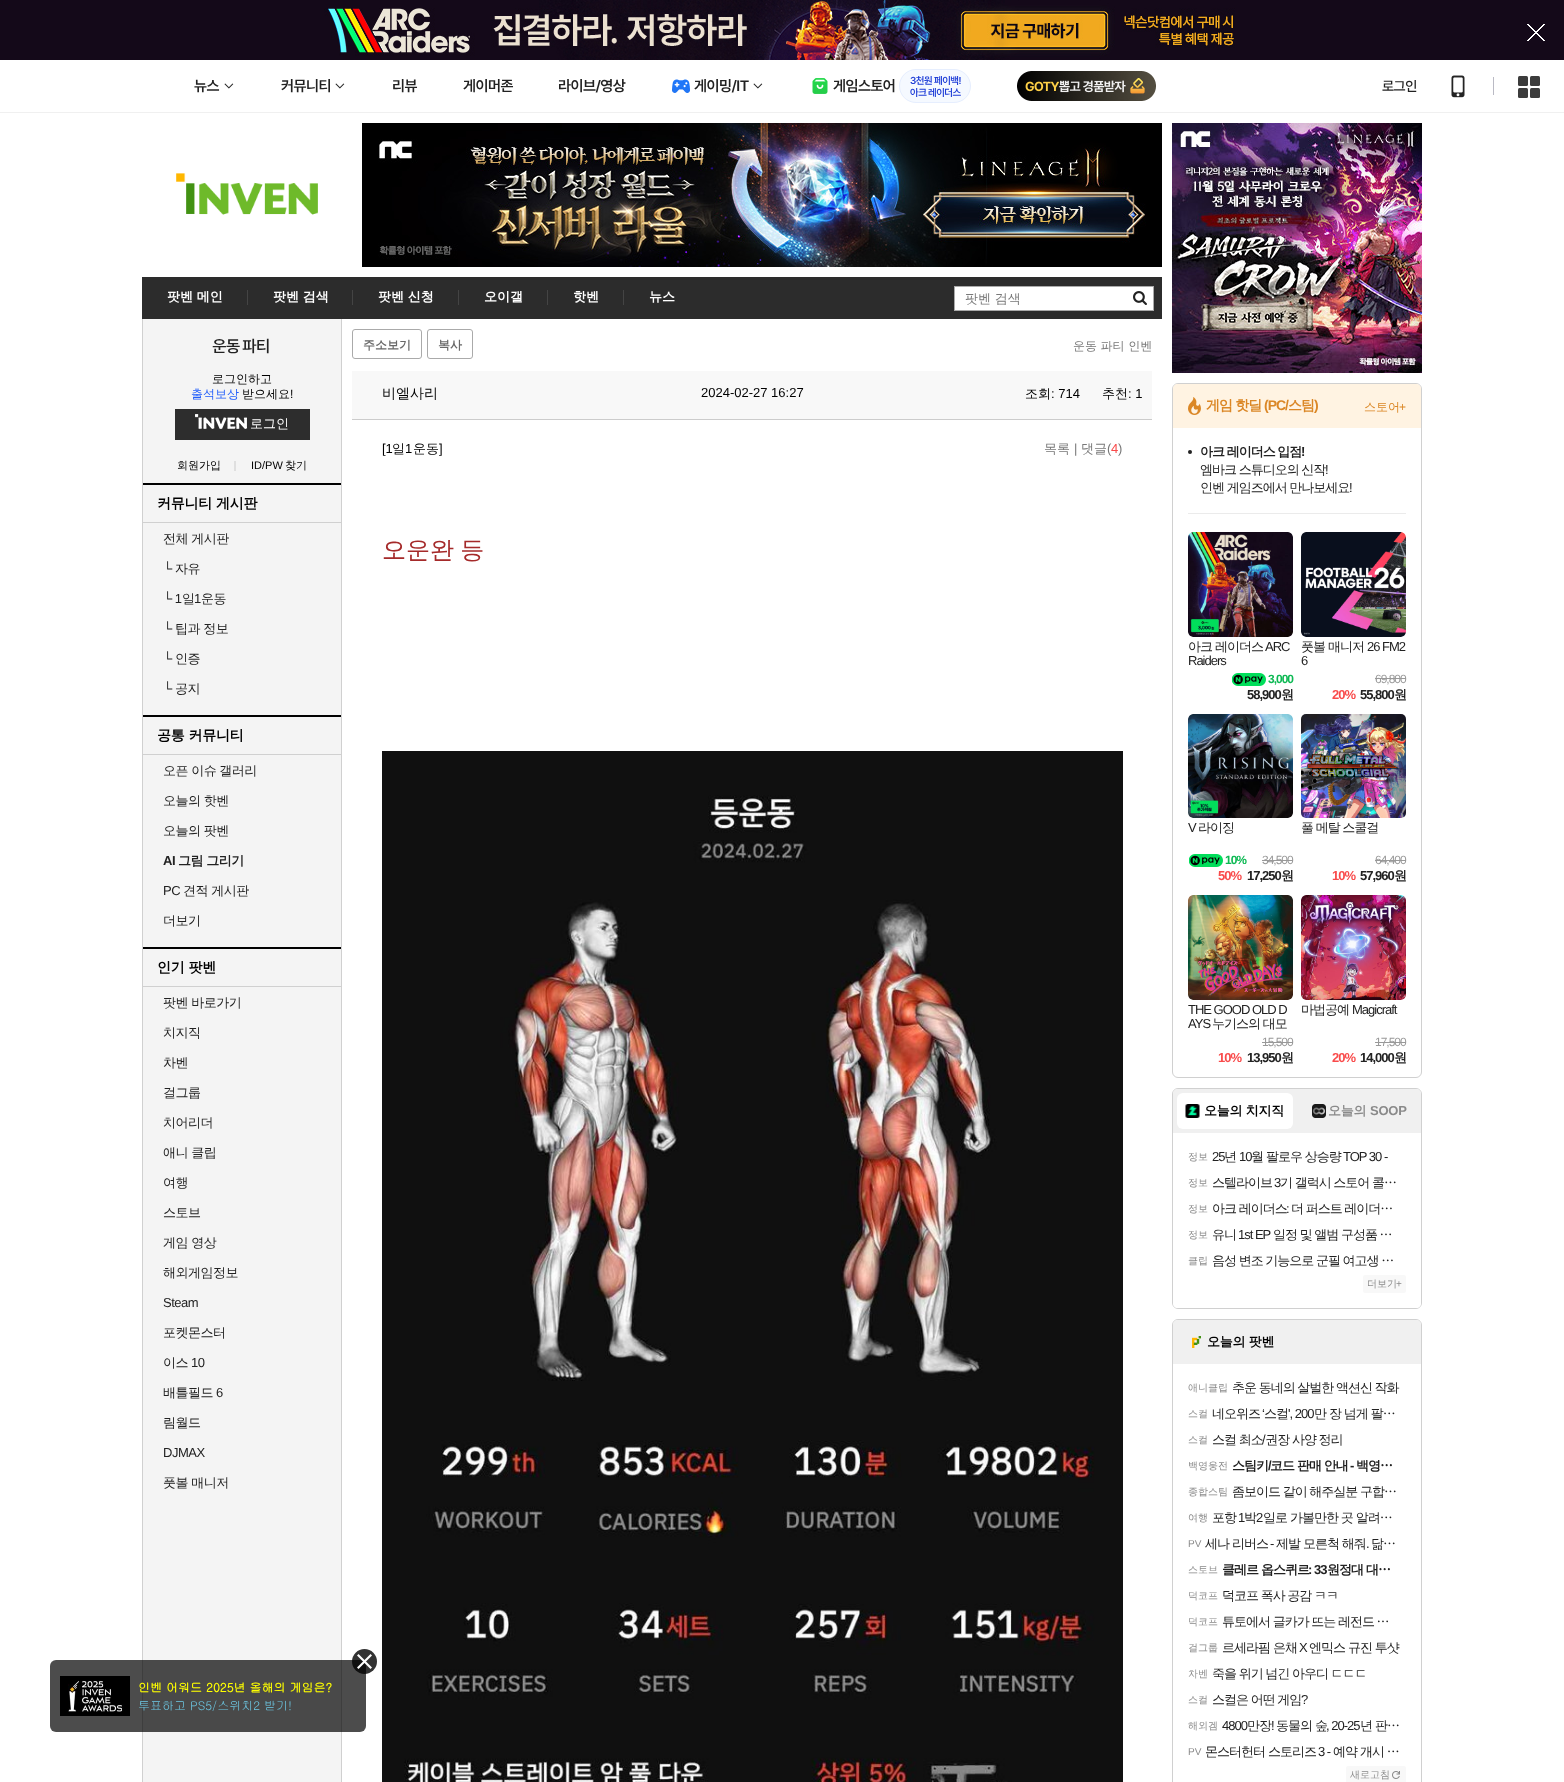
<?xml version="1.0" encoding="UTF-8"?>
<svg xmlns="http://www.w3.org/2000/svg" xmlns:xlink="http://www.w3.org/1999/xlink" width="1564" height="1782">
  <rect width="100%" height="100%" fill="#ffffff" />
  <rect width="1564" height="60" fill="#140919" />
  <image x="324" y="0" width="911" height="60" xlink:href="image1.png" />
  <image x="1527" y="24" width="18" height="17" xlink:href="image2.png" />
  <rect y="112" width="1564" height="1" fill="#f0f0f0" />
  <image x="224" y="83" width="10" height="6" xlink:href="image3.png" />
  <image x="335" y="83" width="10" height="6" xlink:href="image3.png" />
  <image x="672" y="79" width="18" height="14" xlink:href="image4.png" />
  <image x="753" y="83" width="10" height="6" xlink:href="image3.png" />
  <image x="812" y="78" width="16" height="16" xlink:href="image5.png" />
  <rect x="899.5" y="69.5" width="71" height="33" rx="16.5" fill="#f5f9ff" stroke="#e6eefe" />
  <image x="1017" y="71" width="139" height="30" xlink:href="image6.png" />
  <image x="1451" y="75" width="14" height="23" xlink:href="image7.png" />
  <rect x="1518" y="76" width="10" height="10" rx="1.5" fill="#3c3c3c" />
  <rect x="1518" y="88" width="10" height="10" rx="1.5" fill="#3c3c3c" />
  <rect x="1530" y="76" width="10" height="10" rx="1.5" fill="#3c3c3c" />
  <rect x="1530" y="88" width="10" height="10" rx="1.5" fill="#3c3c3c" />
  <rect x="1493" y="77" width="1" height="18" fill="#babac4" />
  <image x="176" y="173" width="142" height="42" xlink:href="image8.png" />
  <image x="362" y="123" width="800" height="144" xlink:href="image9.png" />
  <rect x="142" y="277" width="1020" height="42" fill="#2c2c2c" />
  <rect x="247" y="290" width="1" height="15" fill="#444444" />
  <rect x="352" y="290" width="1" height="15" fill="#444444" />
  <rect x="458" y="290" width="1" height="15" fill="#444444" />
  <rect x="547" y="290" width="1" height="15" fill="#444444" />
  <rect x="623" y="290" width="1" height="15" fill="#444444" />
  <rect x="954.5" y="286.5" width="199" height="24" fill="#ffffff" stroke="#aaaaaa" />
  <image x="1133" y="291" width="14" height="14" xlink:href="image10.png" />
  <rect x="143" y="319" width="198" height="1463" fill="#f4f4f4" />
  <rect x="341" y="319" width="1" height="1463" fill="#d0d0d0" />
  <rect x="142" y="319" width="1" height="1463" fill="#d0d0d0" />
  <rect x="175" y="409" width="135" height="31" fill="#2d2d2d" />
  <image x="195" y="414" width="52" height="15" xlink:href="image11.png" />
  <rect x="234" y="461" width="2" height="10" fill="#dfdfdf" />
  <rect x="143" y="483" width="198" height="2" fill="#000000" />
  <rect x="143" y="522" width="198" height="1" fill="#d0d0d0" />
  <rect x="143" y="715" width="198" height="2" fill="#000000" />
  <rect x="143" y="754" width="198" height="1" fill="#d0d0d0" />
  <rect x="143" y="947" width="198" height="2" fill="#000000" />
  <rect x="143" y="986" width="198" height="1" fill="#d0d0d0" />
  <rect x="352.5" y="329.5" width="69" height="29" rx="2.5" fill="none" stroke="#aaaaaa" />
  <rect x="427.5" y="329.5" width="45" height="29" rx="2.5" fill="none" stroke="#aaaaaa" />
  <rect x="352" y="371" width="800" height="48" fill="#f8f8f8" />
  <rect x="352" y="419" width="800" height="1" fill="#cccccc" />
  <image x="382" y="751" width="741" height="1031" xlink:href="image12.png" />
  <image x="1172" y="123" width="250" height="250" xlink:href="image13.png" />
  <rect x="1172.5" y="383.5" width="249" height="694" rx="5.5" fill="none" stroke="#d0d0d0" />
  <path d="M 1178 384 h 238 c 3 0 5 2 5 5 v 39 h -248 v -39 c 0 -3 2 -5 5 -5 z" fill="#fff3e2" />
  <image x="1188" y="397" width="13" height="18" xlink:href="image14.png" />
  <rect x="1188" y="513" width="218" height="1" fill="#ebebeb" />
  <circle cx="1190" cy="452" r="2" fill="#222222" />
  <image x="1188" y="532" width="105" height="105" xlink:href="image15.png" />
  <image x="1232" y="673" width="34" height="13" xlink:href="image16.png" />
  <image x="1301" y="532" width="105" height="105" xlink:href="image17.png" />
  <rect x="1375" y="678" width="31" height="1" fill="#999999" />
  <image x="1188" y="714" width="105" height="104" xlink:href="image18.png" />
  <image x="1189" y="854" width="34" height="13" xlink:href="image16.png" />
  <rect x="1262" y="860" width="31" height="1" fill="#999999" />
  <image x="1301" y="714" width="105" height="104" xlink:href="image19.png" />
  <rect x="1375" y="860" width="31" height="1" fill="#999999" />
  <image x="1188" y="895" width="105" height="105" xlink:href="image20.png" />
  <rect x="1262" y="1042" width="31" height="1" fill="#999999" />
  <image x="1301" y="895" width="105" height="105" xlink:href="image21.png" />
  <rect x="1375" y="1042" width="31" height="1" fill="#999999" />
  <rect x="1172.5" y="1088.5" width="249" height="220" rx="5.5" fill="none" stroke="#d0d0d0" />
  <path d="M 1178 1089 h 238 c 3 0 5 2 5 5 v 39 h -248 v -39 c 0 -3 2 -5 5 -5 z" fill="#f0f0f0" />
  <rect x="1177" y="1093" width="116" height="36" rx="6" fill="#ffffff" />
  <image x="1185" y="1104" width="15" height="14" xlink:href="image22.png" />
  <image x="1312" y="1104" width="14" height="14" xlink:href="image23.png" />
  <path d="M 1173 1133 h 248 v 170 c 0 3 -2 5 -5 5 h -238 c -3 0 -5 -2 -5 -5 z" fill="#ffffff" />
  <rect x="1363" y="1275" width="43" height="18" rx="2" fill="#f8f8f8" />
  <rect x="1172.5" y="1319.5" width="249" height="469" rx="5.5" fill="none" stroke="#d0d0d0" />
  <path d="M 1178 1320 h 238 c 3 0 5 2 5 5 v 39 h -248 v -39 c 0 -3 2 -5 5 -5 z" fill="#f0f0f0" />
  <image x="1192" y="1336" width="9" height="12" xlink:href="image24.png" />
  <rect x="1346" y="1766" width="60" height="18" rx="2" fill="#f8f8f8" />
  <image x="1392" y="1771" width="8" height="8" xlink:href="image25.png" />
  <rect x="50" y="1660" width="316" height="72" rx="6" fill="#000000" fill-opacity="0.7" />
  <circle cx="364.5" cy="1661.5" r="12.5" fill="#000000" fill-opacity="0.8" />
  <path d="M 370.5 1654 l 1.5 1.5 l -13.5 13.5 l -1.5 -1.5 z" fill="#ffffff" />
  <path d="M 358.5 1654 l 13.5 13.5 l -1.5 1.5 l -13.5 -13.5 z" fill="#ffffff" />
  <image x="60" y="1676" width="70" height="40" xlink:href="image26.png" />
  <text x="194" y="91" style="font-family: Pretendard; font-size: 15px; font-weight: 600; letter-spacing: -0.5px; fill: #222222">뉴스</text>
  <text x="281" y="91" style="font-family: Pretendard; font-size: 15px; font-weight: 600; letter-spacing: -0.5px; fill: #222222">커뮤니티</text>
  <text x="392" y="91" style="font-family: Pretendard; font-size: 15px; font-weight: 600; letter-spacing: -0.5px; fill: #222222">리뷰</text>
  <text x="463" y="91" style="font-family: Pretendard; font-size: 15px; font-weight: 600; letter-spacing: -0.5px; fill: #222222">게이머존</text>
  <text x="558" y="91" style="font-family: Pretendard; font-size: 15px; font-weight: 600; letter-spacing: -0.5px; fill: #222222">라이브/영상</text>
  <text x="694" y="91" style="font-family: Pretendard; font-size: 15px; font-weight: 600; letter-spacing: -0.5px; fill: #222222">게이밍/IT</text>
  <text x="833" y="91" style="font-family: Pretendard; font-size: 15px; font-weight: 600; letter-spacing: -0.5px; fill: #222222">게임스토어</text>
  <text x="910" y="84" style="font-family: Pretendard; font-size: 10px; font-weight: 600; letter-spacing: -0.5px; fill: #1e3dd7">3천원</text>
  <text x="934" y="84" style="font-family: Pretendard; font-size: 10px; font-weight: 600; letter-spacing: -0.5px; fill: #1e3dd7">페이백!</text>
  <text x="910" y="96" style="font-family: Pretendard; font-size: 10px; font-weight: 600; letter-spacing: -0.5px; fill: #1e3dd7">아크</text>
  <text x="928" y="96" style="font-family: Pretendard; font-size: 10px; font-weight: 600; letter-spacing: -0.5px; fill: #1e3dd7">레이더스</text>
  <text x="1382" y="91" style="font-family: Pretendard; font-size: 14px; font-weight: 500; letter-spacing: -0.5px; fill: #222222">로그인</text>
  <text x="167" y="301" word-spacing="-0.25" style="font-family: WenQuanYi Zen Hei; font-size: 13px; font-weight: bold; fill: #ffffff">팟벤 메인</text>
  <text x="273" y="301" word-spacing="-0.25" style="font-family: WenQuanYi Zen Hei; font-size: 13px; font-weight: bold; fill: #ffffff">팟벤 검색</text>
  <text x="378" y="301" word-spacing="-0.25" style="font-family: WenQuanYi Zen Hei; font-size: 13px; font-weight: bold; fill: #ffffff">팟벤 신청</text>
  <text x="484" y="301" style="font-family: WenQuanYi Zen Hei; font-size: 13px; font-weight: bold; fill: #ffffff">오이갤</text>
  <text x="573" y="301" style="font-family: WenQuanYi Zen Hei; font-size: 13px; font-weight: bold; fill: #ffffff">핫벤</text>
  <text x="649" y="301" style="font-family: WenQuanYi Zen Hei; font-size: 13px; font-weight: bold; fill: #ffffff">뉴스</text>
  <text x="965" y="303" word-spacing="-0.25" style="font-family: WenQuanYi Zen Hei; font-size: 13px; font-weight: 500; fill: #787878">팟벤 검색</text>
  <text x="212" y="352" style="font-family: Noto Sans KR; font-size: 16px; font-weight: 500; letter-spacing: -1px; fill: #222222">운동 파티</text>
  <text x="212" y="383" style="font-family: WenQuanYi Zen Hei; font-size: 12px; font-weight: 500; fill: #000000">로그인하고</text>
  <text x="191" y="398" style="font-family: WenQuanYi Zen Hei; font-size: 12px; font-weight: 500; fill: #205dfa">출석보상</text>
  <text x="242" y="398" style="font-family: WenQuanYi Zen Hei; font-size: 12px; font-weight: 500; fill: #000000">받으세요</text>
  <text x="290" y="398" style="font-family: Liberation Sans; font-size: 12px; fill: #000000">!</text>
  <text x="250" y="428" style="font-family: WenQuanYi Zen Hei; font-size: 13px; font-weight: 500; fill: #ffffff">로그인</text>
  <text x="177" y="469" style="font-family: WenQuanYi Zen Hei; font-size: 11px; font-weight: 500; fill: #000000">회원가입</text>
  <text x="251" y="469" style="font-family: Liberation Sans; font-size: 11px; fill: #000000">ID/PW</text>
  <text x="285" y="469" style="font-family: WenQuanYi Zen Hei; font-size: 11px; font-weight: 500; fill: #000000">찾기</text>
  <text x="157" y="508" style="font-family: WenQuanYi Zen Hei; font-size: 14px; font-weight: bold; letter-spacing: -0.25px; fill: #000000">커뮤니티 게시판</text>
  <text x="163" y="543" word-spacing="-0.25" style="font-family: WenQuanYi Zen Hei; font-size: 13px; font-weight: 500; letter-spacing: -0.5px; fill: #222222">전체 게시판</text>
  <text x="163" y="573" style="font-family: Liberation Sans; font-size: 13px; letter-spacing: -0.5px; fill: #222222">└</text>
  <text x="175" y="573" style="font-family: WenQuanYi Zen Hei; font-size: 13px; font-weight: 500; letter-spacing: -0.5px; fill: #222222">자유</text>
  <text x="163" y="603" style="font-family: Liberation Sans; font-size: 13px; letter-spacing: -0.5px; fill: #222222">└ 1</text>
  <text x="182" y="603" style="font-family: WenQuanYi Zen Hei; font-size: 13px; font-weight: 500; letter-spacing: -0.5px; fill: #222222">일</text>
  <text x="194" y="603" style="font-family: Liberation Sans; font-size: 13px; letter-spacing: -0.5px; fill: #222222">1</text>
  <text x="201" y="603" style="font-family: WenQuanYi Zen Hei; font-size: 13px; font-weight: 500; letter-spacing: -0.5px; fill: #222222">운동</text>
  <text x="163" y="633" style="font-family: Liberation Sans; font-size: 13px; letter-spacing: -0.5px; fill: #222222">└</text>
  <text x="175" y="633" word-spacing="-0.25" style="font-family: WenQuanYi Zen Hei; font-size: 13px; font-weight: 500; letter-spacing: -0.5px; fill: #222222">팁과 정보</text>
  <text x="163" y="663" style="font-family: Liberation Sans; font-size: 13px; letter-spacing: -0.5px; fill: #222222">└</text>
  <text x="175" y="663" style="font-family: WenQuanYi Zen Hei; font-size: 13px; font-weight: 500; letter-spacing: -0.5px; fill: #222222">인증</text>
  <text x="163" y="693" style="font-family: Liberation Sans; font-size: 13px; letter-spacing: -0.5px; fill: #222222">└</text>
  <text x="175" y="693" style="font-family: WenQuanYi Zen Hei; font-size: 13px; font-weight: 500; letter-spacing: -0.5px; fill: #222222">공지</text>
  <text x="157" y="740" style="font-family: WenQuanYi Zen Hei; font-size: 14px; font-weight: bold; letter-spacing: -0.25px; fill: #000000">공통 커뮤니티</text>
  <text x="163" y="775" word-spacing="-0.25" style="font-family: WenQuanYi Zen Hei; font-size: 13px; font-weight: 500; letter-spacing: -0.5px; fill: #222222">오픈 이슈 갤러리</text>
  <text x="163" y="805" word-spacing="-0.25" style="font-family: WenQuanYi Zen Hei; font-size: 13px; font-weight: 500; letter-spacing: -0.5px; fill: #222222">오늘의 핫벤</text>
  <text x="163" y="835" word-spacing="-0.25" style="font-family: WenQuanYi Zen Hei; font-size: 13px; font-weight: 500; letter-spacing: -0.5px; fill: #222222">오늘의 팟벤</text>
  <text x="163" y="865" style="font-family: Liberation Sans; font-size: 13px; font-weight: bold; letter-spacing: -0.5px; fill: #222222">AI</text>
  <text x="178" y="865" word-spacing="-0.25" style="font-family: WenQuanYi Zen Hei; font-size: 13px; font-weight: bold; letter-spacing: -0.5px; fill: #222222">그림 그리기</text>
  <text x="163" y="895" style="font-family: Liberation Sans; font-size: 13px; letter-spacing: -0.5px; fill: #222222">PC</text>
  <text x="183" y="895" word-spacing="-0.25" style="font-family: WenQuanYi Zen Hei; font-size: 13px; font-weight: 500; letter-spacing: -0.5px; fill: #222222">견적 게시판</text>
  <text x="163" y="925" style="font-family: WenQuanYi Zen Hei; font-size: 13px; font-weight: 500; letter-spacing: -0.5px; fill: #222222">더보기</text>
  <text x="157" y="972" style="font-family: WenQuanYi Zen Hei; font-size: 14px; font-weight: bold; letter-spacing: -0.25px; fill: #000000">인기 팟벤</text>
  <text x="163" y="1007" word-spacing="-0.25" style="font-family: WenQuanYi Zen Hei; font-size: 13px; font-weight: 500; letter-spacing: -0.5px; fill: #222222">팟벤 바로가기</text>
  <text x="163" y="1037" style="font-family: WenQuanYi Zen Hei; font-size: 13px; font-weight: 500; letter-spacing: -0.5px; fill: #222222">치지직</text>
  <text x="163" y="1067" style="font-family: WenQuanYi Zen Hei; font-size: 13px; font-weight: 500; letter-spacing: -0.5px; fill: #222222">차벤</text>
  <text x="163" y="1097" style="font-family: WenQuanYi Zen Hei; font-size: 13px; font-weight: 500; letter-spacing: -0.5px; fill: #222222">걸그룹</text>
  <text x="163" y="1127" style="font-family: WenQuanYi Zen Hei; font-size: 13px; font-weight: 500; letter-spacing: -0.5px; fill: #222222">치어리더</text>
  <text x="163" y="1157" word-spacing="-0.25" style="font-family: WenQuanYi Zen Hei; font-size: 13px; font-weight: 500; letter-spacing: -0.5px; fill: #222222">애니 클립</text>
  <text x="163" y="1187" style="font-family: WenQuanYi Zen Hei; font-size: 13px; font-weight: 500; letter-spacing: -0.5px; fill: #222222">여행</text>
  <text x="163" y="1217" style="font-family: WenQuanYi Zen Hei; font-size: 13px; font-weight: 500; letter-spacing: -0.5px; fill: #222222">스토브</text>
  <text x="163" y="1247" word-spacing="-0.25" style="font-family: WenQuanYi Zen Hei; font-size: 13px; font-weight: 500; letter-spacing: -0.5px; fill: #222222">게임 영상</text>
  <text x="163" y="1277" style="font-family: WenQuanYi Zen Hei; font-size: 13px; font-weight: 500; letter-spacing: -0.5px; fill: #222222">해외게임정보</text>
  <text x="163" y="1307" style="font-family: Liberation Sans; font-size: 13px; letter-spacing: -0.5px; fill: #222222">Steam</text>
  <text x="163" y="1337" style="font-family: WenQuanYi Zen Hei; font-size: 13px; font-weight: 500; letter-spacing: -0.5px; fill: #222222">포켓몬스터</text>
  <text x="163" y="1367" style="font-family: WenQuanYi Zen Hei; font-size: 13px; font-weight: 500; letter-spacing: -0.5px; fill: #222222">이스</text>
  <text x="191" y="1367" style="font-family: Liberation Sans; font-size: 13px; letter-spacing: -0.5px; fill: #222222">10</text>
  <text x="163" y="1397" style="font-family: WenQuanYi Zen Hei; font-size: 13px; font-weight: 500; letter-spacing: -0.5px; fill: #222222">배틀필드</text>
  <text x="216" y="1397" style="font-family: Liberation Sans; font-size: 13px; letter-spacing: -0.5px; fill: #222222">6</text>
  <text x="163" y="1427" style="font-family: WenQuanYi Zen Hei; font-size: 13px; font-weight: 500; letter-spacing: -0.5px; fill: #222222">림월드</text>
  <text x="163" y="1457" style="font-family: Liberation Sans; font-size: 13px; letter-spacing: -0.5px; fill: #222222">DJMAX</text>
  <text x="163" y="1487" word-spacing="-0.25" style="font-family: WenQuanYi Zen Hei; font-size: 13px; font-weight: 500; letter-spacing: -0.5px; fill: #222222">풋볼 매니저</text>
  <text x="363" y="349" style="font-family: WenQuanYi Zen Hei; font-size: 12px; font-weight: bold; fill: #686868">주소보기</text>
  <text x="438" y="349" style="font-family: WenQuanYi Zen Hei; font-size: 12px; font-weight: bold; fill: #686868">복사</text>
  <text x="1073" y="350" style="font-family: WenQuanYi Zen Hei; font-size: 12px; font-weight: 500; fill: #787878">운동 파티 인벤</text>
  <text x="382" y="398" style="font-family: WenQuanYi Zen Hei; font-size: 14px; font-weight: 500; fill: #000000">비엘사리</text>
  <text x="701" y="397" style="font-family: Liberation Sans; font-size: 13px; fill: #000000">2024-02-27 16:27</text>
  <text x="1025" y="398" style="font-family: WenQuanYi Zen Hei; font-size: 13px; font-weight: 500; fill: #000000">조회</text>
  <text x="1051" y="398" style="font-family: Liberation Sans; font-size: 13px; fill: #000000">: 714</text>
  <text x="1102" y="398" style="font-family: WenQuanYi Zen Hei; font-size: 13px; font-weight: 500; fill: #000000">추천</text>
  <text x="1128" y="398" style="font-family: Liberation Sans; font-size: 13px; fill: #000000">: 1</text>
  <text x="382" y="453" style="font-family: Liberation Sans; font-size: 13px; fill: #000000">[1</text>
  <text x="392" y="453" style="font-family: WenQuanYi Zen Hei; font-size: 13px; font-weight: 500; fill: #000000">일</text>
  <text x="405" y="453" style="font-family: Liberation Sans; font-size: 13px; fill: #000000">1</text>
  <text x="413" y="453" style="font-family: WenQuanYi Zen Hei; font-size: 13px; font-weight: 500; fill: #000000">운동</text>
  <text x="439" y="453" style="font-family: Liberation Sans; font-size: 13px; fill: #000000">]</text>
  <text x="1044" y="453" style="font-family: WenQuanYi Zen Hei; font-size: 13px; font-weight: 500; fill: #787878">목록</text>
  <text x="1074" y="453" style="font-family: Liberation Sans; font-size: 13px; fill: #787878">|</text>
  <text x="1081" y="453" style="font-family: WenQuanYi Zen Hei; font-size: 13px; font-weight: 500; fill: #787878">댓글</text>
  <text x="1107" y="453" style="font-family: Liberation Sans; font-size: 13px; fill: #787878">(</text>
  <text x="1111" y="453" style="font-family: Liberation Sans; font-size: 13px; fill: #f94b4b">4</text>
  <text x="1118" y="453" style="font-family: Liberation Sans; font-size: 13px; fill: #787878">)</text>
  <text x="382" y="558" word-spacing="-1" style="font-family: WenQuanYi Zen Hei; font-size: 24px; font-weight: 500; fill: #a52a2a">오운완 등</text>
  <text x="1206" y="410" style="font-family: WenQuanYi Zen Hei; font-size: 14px; font-weight: bold; letter-spacing: -1px; fill: #db8726">게임 핫딜</text>
  <text x="1264" y="410" style="font-family: Liberation Sans; font-size: 14px; font-weight: bold; letter-spacing: -1px; fill: #db8726">(PC/</text>
  <text x="1288" y="410" style="font-family: WenQuanYi Zen Hei; font-size: 14px; font-weight: bold; letter-spacing: -1px; fill: #db8726">스팀</text>
  <text x="1314" y="410" style="font-family: Liberation Sans; font-size: 14px; font-weight: bold; letter-spacing: -1px; fill: #db8726">)</text>
  <text x="1364" y="411" style="font-family: WenQuanYi Zen Hei; font-size: 12px; font-weight: 500; fill: #db8726">스토어</text>
  <text x="1399" y="411" style="font-family: Liberation Sans; font-size: 12px; fill: #db8726">+</text>
  <text x="1200" y="456" word-spacing="-0.25" style="font-family: WenQuanYi Zen Hei; font-size: 13px; font-weight: bold; letter-spacing: -1px; fill: #222222">아크 레이더스 입점</text>
  <text x="1301" y="456" style="font-family: Liberation Sans; font-size: 13px; font-weight: bold; letter-spacing: -1px; fill: #222222">!</text>
  <text x="1200" y="474" word-spacing="-0.25" style="font-family: WenQuanYi Zen Hei; font-size: 13px; font-weight: 500; letter-spacing: -1px; fill: #222222">엠바크 스튜디오의 신작</text>
  <text x="1325" y="474" style="font-family: Liberation Sans; font-size: 13px; letter-spacing: -1px; fill: #222222">!</text>
  <text x="1200" y="492" word-spacing="-0.25" style="font-family: WenQuanYi Zen Hei; font-size: 13px; font-weight: 500; letter-spacing: -1px; fill: #222222">인벤 게임즈에서 만나보세요</text>
  <text x="1349" y="492" style="font-family: Liberation Sans; font-size: 13px; letter-spacing: -1px; fill: #222222">!</text>
  <text x="1188" y="651" style="font-family: WenQuanYi Zen Hei; font-size: 13px; font-weight: 500; letter-spacing: -1px; fill: #222222">아크 레이더스</text>
  <text x="1265" y="651" style="font-family: Liberation Sans; font-size: 13px; letter-spacing: -1px; fill: #222222">ARC</text>
  <text x="1188" y="665" style="font-family: Liberation Sans; font-size: 13px; letter-spacing: -1px; fill: #222222">Raiders</text>
  <text x="1268" y="683" style="font-family: Liberation Sans; font-size: 12px; font-weight: bold; letter-spacing: -1px; fill: #0db953">3,000</text>
  <text x="1247" y="699" style="font-family: Liberation Sans; font-size: 13px; font-weight: bold; letter-spacing: -1px; fill: #222222">58,900</text>
  <text x="1281" y="699" style="font-family: WenQuanYi Zen Hei; font-size: 13px; font-weight: bold; letter-spacing: -1px; fill: #222222">원</text>
  <text x="1301" y="651" style="font-family: WenQuanYi Zen Hei; font-size: 13px; font-weight: 500; letter-spacing: -1px; fill: #222222">풋볼 매니저</text>
  <text x="1367" y="651" style="font-family: Liberation Sans; font-size: 13px; letter-spacing: -1px; fill: #222222">26 FM2</text>
  <text x="1301" y="665" style="font-family: Liberation Sans; font-size: 13px; letter-spacing: -1px; fill: #222222">6</text>
  <text x="1375" y="683" style="font-family: Liberation Sans; font-size: 12px; letter-spacing: -1px; fill: #999999">69,800</text>
  <text x="1332" y="699" style="font-family: Liberation Sans; font-size: 13px; font-weight: bold; letter-spacing: -1px; fill: #f94b4b">20%</text>
  <text x="1360" y="699" style="font-family: Liberation Sans; font-size: 13px; font-weight: bold; letter-spacing: -1px; fill: #222222">55,800</text>
  <text x="1394" y="699" style="font-family: WenQuanYi Zen Hei; font-size: 13px; font-weight: bold; letter-spacing: -1px; fill: #222222">원</text>
  <text x="1188" y="832" style="font-family: Liberation Sans; font-size: 13px; letter-spacing: -1px; fill: #222222">V</text>
  <text x="1198" y="832" style="font-family: WenQuanYi Zen Hei; font-size: 13px; font-weight: 500; letter-spacing: -1px; fill: #222222">라이징</text>
  <text x="1225" y="864" style="font-family: Liberation Sans; font-size: 12px; font-weight: bold; letter-spacing: -1px; fill: #0db953">10%</text>
  <text x="1262" y="864" style="font-family: Liberation Sans; font-size: 12px; letter-spacing: -1px; fill: #999999">34,500</text>
  <text x="1218" y="880" style="font-family: Liberation Sans; font-size: 13px; font-weight: bold; letter-spacing: -1px; fill: #f94b4b">50%</text>
  <text x="1247" y="880" style="font-family: Liberation Sans; font-size: 13px; font-weight: bold; letter-spacing: -1px; fill: #222222">17,250</text>
  <text x="1281" y="880" style="font-family: WenQuanYi Zen Hei; font-size: 13px; font-weight: bold; letter-spacing: -1px; fill: #222222">원</text>
  <text x="1301" y="832" word-spacing="-0.25" style="font-family: WenQuanYi Zen Hei; font-size: 13px; font-weight: 500; letter-spacing: -1px; fill: #222222">풀 메탈 스쿨걸</text>
  <text x="1375" y="864" style="font-family: Liberation Sans; font-size: 12px; letter-spacing: -1px; fill: #999999">64,400</text>
  <text x="1332" y="880" style="font-family: Liberation Sans; font-size: 13px; font-weight: bold; letter-spacing: -1px; fill: #f94b4b">10%</text>
  <text x="1360" y="880" style="font-family: Liberation Sans; font-size: 13px; font-weight: bold; letter-spacing: -1px; fill: #222222">57,960</text>
  <text x="1394" y="880" style="font-family: WenQuanYi Zen Hei; font-size: 13px; font-weight: bold; letter-spacing: -1px; fill: #222222">원</text>
  <text x="1188" y="1014" style="font-family: Liberation Sans; font-size: 13px; letter-spacing: -1px; fill: #222222">THE GOOD OLD D</text>
  <text x="1188" y="1028" style="font-family: Liberation Sans; font-size: 13px; letter-spacing: -1px; fill: #222222">AYS</text>
  <text x="1212" y="1028" word-spacing="-0.25" style="font-family: WenQuanYi Zen Hei; font-size: 13px; font-weight: 500; letter-spacing: -1px; fill: #222222">누기스의 대모</text>
  <text x="1262" y="1046" style="font-family: Liberation Sans; font-size: 12px; letter-spacing: -1px; fill: #999999">15,500</text>
  <text x="1218" y="1062" style="font-family: Liberation Sans; font-size: 13px; font-weight: bold; letter-spacing: -1px; fill: #f94b4b">10%</text>
  <text x="1247" y="1062" style="font-family: Liberation Sans; font-size: 13px; font-weight: bold; letter-spacing: -1px; fill: #222222">13,950</text>
  <text x="1281" y="1062" style="font-family: WenQuanYi Zen Hei; font-size: 13px; font-weight: bold; letter-spacing: -1px; fill: #222222">원</text>
  <text x="1301" y="1014" style="font-family: WenQuanYi Zen Hei; font-size: 13px; font-weight: 500; letter-spacing: -1px; fill: #222222">마법공예</text>
  <text x="1352" y="1014" style="font-family: Liberation Sans; font-size: 13px; letter-spacing: -1px; fill: #222222">Magicraft</text>
  <text x="1375" y="1046" style="font-family: Liberation Sans; font-size: 12px; letter-spacing: -1px; fill: #999999">17,500</text>
  <text x="1332" y="1062" style="font-family: Liberation Sans; font-size: 13px; font-weight: bold; letter-spacing: -1px; fill: #f94b4b">20%</text>
  <text x="1360" y="1062" style="font-family: Liberation Sans; font-size: 13px; font-weight: bold; letter-spacing: -1px; fill: #222222">14,000</text>
  <text x="1394" y="1062" style="font-family: WenQuanYi Zen Hei; font-size: 13px; font-weight: bold; letter-spacing: -1px; fill: #222222">원</text>
  <text x="1204" y="1115" word-spacing="-0.25" style="font-family: WenQuanYi Zen Hei; font-size: 13px; font-weight: bold; letter-spacing: -0.25px; fill: #000000">오늘의 치지직</text>
  <text x="1328" y="1115" style="font-family: WenQuanYi Zen Hei; font-size: 13px; font-weight: bold; letter-spacing: -0.25px; fill: #8a8a8a">오늘의</text>
  <text x="1370" y="1115" style="font-family: Liberation Sans; font-size: 13px; font-weight: bold; letter-spacing: -0.25px; fill: #8a8a8a">SOOP</text>
  <text x="1188" y="1160" style="font-family: WenQuanYi Zen Hei; font-size: 10px; font-weight: 500; fill: #8a8a8a">정보</text>
  <text x="1212" y="1161" style="font-family: Liberation Sans; font-size: 13px; letter-spacing: -1px; fill: #222222">25</text>
  <text x="1224" y="1161" style="font-family: WenQuanYi Zen Hei; font-size: 13px; font-weight: 500; letter-spacing: -1px; fill: #222222">년</text>
  <text x="1239" y="1161" style="font-family: Liberation Sans; font-size: 13px; letter-spacing: -1px; fill: #222222">10</text>
  <text x="1251" y="1161" style="font-family: WenQuanYi Zen Hei; font-size: 13px; font-weight: 500; letter-spacing: -1px; fill: #222222">월 팔로우 상승량</text>
  <text x="1343" y="1161" style="font-family: Liberation Sans; font-size: 13px; letter-spacing: -1px; fill: #222222">TOP 30 -</text>
  <text x="1188" y="1186" style="font-family: WenQuanYi Zen Hei; font-size: 10px; font-weight: 500; fill: #8a8a8a">정보</text>
  <text x="1212" y="1187" style="font-family: WenQuanYi Zen Hei; font-size: 13px; font-weight: 500; letter-spacing: -1px; fill: #222222">스텔라이브</text>
  <text x="1274" y="1187" style="font-family: Liberation Sans; font-size: 13px; letter-spacing: -1px; fill: #222222">3</text>
  <text x="1280" y="1187" word-spacing="-0.25" style="font-family: WenQuanYi Zen Hei; font-size: 13px; font-weight: 500; letter-spacing: -1px; fill: #222222">기 갤럭시 스토어 콜…</text>
  <text x="1188" y="1212" style="font-family: WenQuanYi Zen Hei; font-size: 10px; font-weight: 500; fill: #8a8a8a">정보</text>
  <text x="1212" y="1213" word-spacing="-0.25" style="font-family: WenQuanYi Zen Hei; font-size: 13px; font-weight: 500; letter-spacing: -1px; fill: #222222">아크 레이더스</text>
  <text x="1286" y="1213" style="font-family: Liberation Sans; font-size: 13px; letter-spacing: -1px; fill: #222222">:</text>
  <text x="1291" y="1213" word-spacing="-0.25" style="font-family: WenQuanYi Zen Hei; font-size: 13px; font-weight: 500; letter-spacing: -1px; fill: #222222">더 퍼스트 레이더…</text>
  <text x="1188" y="1238" style="font-family: WenQuanYi Zen Hei; font-size: 10px; font-weight: 500; fill: #8a8a8a">정보</text>
  <text x="1212" y="1239" style="font-family: WenQuanYi Zen Hei; font-size: 13px; font-weight: 500; letter-spacing: -1px; fill: #222222">유니</text>
  <text x="1238" y="1239" style="font-family: Liberation Sans; font-size: 13px; letter-spacing: -1px; fill: #222222">1st EP</text>
  <text x="1273" y="1239" word-spacing="-0.25" style="font-family: WenQuanYi Zen Hei; font-size: 13px; font-weight: 500; letter-spacing: -1px; fill: #222222">일정 및 앨범 구성품 …</text>
  <text x="1188" y="1264" style="font-family: WenQuanYi Zen Hei; font-size: 10px; font-weight: 500; fill: #8a8a8a">클립</text>
  <text x="1212" y="1265" word-spacing="-0.25" style="font-family: WenQuanYi Zen Hei; font-size: 13px; font-weight: 500; letter-spacing: -1px; fill: #222222">음성 변조 기능으로 군필 여고생 …</text>
  <text x="1367" y="1287" style="font-family: WenQuanYi Zen Hei; font-size: 10px; font-weight: 500; fill: #8a8a8a">더보기</text>
  <text x="1396" y="1287" style="font-family: Liberation Sans; font-size: 10px; fill: #8a8a8a">+</text>
  <text x="1207" y="1346" word-spacing="-0.25" style="font-family: WenQuanYi Zen Hei; font-size: 13px; font-weight: bold; letter-spacing: -0.25px; fill: #000000">오늘의 팟벤</text>
  <text x="1188" y="1391" style="font-family: WenQuanYi Zen Hei; font-size: 10px; font-weight: 500; fill: #8a8a8a">애니클립</text>
  <text x="1232" y="1392" word-spacing="-0.25" style="font-family: WenQuanYi Zen Hei; font-size: 13px; font-weight: 500; letter-spacing: -1px; fill: #222222">추운 동네의 살벌한 액션신 작화</text>
  <text x="1188" y="1417" style="font-family: WenQuanYi Zen Hei; font-size: 10px; font-weight: 500; fill: #8a8a8a">스컬</text>
  <text x="1212" y="1418" style="font-family: WenQuanYi Zen Hei; font-size: 13px; font-weight: 500; letter-spacing: -1px; fill: #222222">네오위즈</text>
  <text x="1262" y="1418" style="font-family: Liberation Sans; font-size: 13px; letter-spacing: -1px; fill: #222222">‘</text>
  <text x="1264" y="1418" style="font-family: WenQuanYi Zen Hei; font-size: 13px; font-weight: 500; letter-spacing: -1px; fill: #222222">스컬</text>
  <text x="1288" y="1418" style="font-family: Liberation Sans; font-size: 13px; letter-spacing: -1px; fill: #222222">', 200</text>
  <text x="1314" y="1418" style="font-family: WenQuanYi Zen Hei; font-size: 13px; font-weight: 500; letter-spacing: -1px; fill: #222222">만 장 넘게 팔…</text>
  <text x="1212" y="1444" word-spacing="-0.25" style="font-family: WenQuanYi Zen Hei; font-size: 13px; font-weight: 500; letter-spacing: -1px; fill: #222222">스컬 최소 권장 사양 정리</text>
  <text x="1188" y="1443" style="font-family: WenQuanYi Zen Hei; font-size: 10px; font-weight: 500; fill: #8a8a8a">스컬</text>
  <text x="1262" y="1444" style="font-family: Liberation Sans; font-size: 13px; letter-spacing: -1px; fill: #222222">/</text>
  <text x="1188" y="1469" style="font-family: WenQuanYi Zen Hei; font-size: 10px; font-weight: 500; fill: #8a8a8a">백영웅전</text>
  <text x="1232" y="1470" style="font-family: WenQuanYi Zen Hei; font-size: 13px; font-weight: bold; letter-spacing: -1px; fill: #222222">스팀키</text>
  <text x="1268" y="1470" style="font-family: Liberation Sans; font-size: 13px; font-weight: bold; letter-spacing: -1px; fill: #222222">/</text>
  <text x="1270" y="1470" style="font-family: WenQuanYi Zen Hei; font-size: 13px; font-weight: bold; letter-spacing: -1px; fill: #222222">코드 판매 안내</text>
  <text x="1350" y="1470" style="font-family: Liberation Sans; font-size: 13px; font-weight: bold; letter-spacing: -1px; fill: #222222">-</text>
  <text x="1356" y="1470" style="font-family: WenQuanYi Zen Hei; font-size: 13px; font-weight: bold; letter-spacing: -1px; fill: #222222">백영…</text>
  <text x="1188" y="1495" style="font-family: WenQuanYi Zen Hei; font-size: 10px; font-weight: 500; fill: #8a8a8a">종합스팀</text>
  <text x="1232" y="1496" word-spacing="-0.25" style="font-family: WenQuanYi Zen Hei; font-size: 13px; font-weight: 500; letter-spacing: -1px; fill: #222222">좀보이드 같이 해주실분 구합…</text>
  <text x="1188" y="1521" style="font-family: WenQuanYi Zen Hei; font-size: 10px; font-weight: 500; fill: #8a8a8a">여행</text>
  <text x="1212" y="1522" style="font-family: WenQuanYi Zen Hei; font-size: 13px; font-weight: 500; letter-spacing: -1px; fill: #222222">포항</text>
  <text x="1238" y="1522" style="font-family: Liberation Sans; font-size: 13px; letter-spacing: -1px; fill: #222222">1</text>
  <text x="1244" y="1522" style="font-family: WenQuanYi Zen Hei; font-size: 13px; font-weight: 500; letter-spacing: -1px; fill: #222222">박</text>
  <text x="1256" y="1522" style="font-family: Liberation Sans; font-size: 13px; letter-spacing: -1px; fill: #222222">2</text>
  <text x="1263" y="1522" style="font-family: WenQuanYi Zen Hei; font-size: 13px; font-weight: 500; letter-spacing: -1px; fill: #222222">일로 가볼만한 곳 알려…</text>
  <text x="1188" y="1547" style="font-family: Liberation Sans; font-size: 10px; fill: #8a8a8a">PV</text>
  <text x="1205" y="1548" style="font-family: WenQuanYi Zen Hei; font-size: 13px; font-weight: 500; letter-spacing: -1px; fill: #222222">세나 리버스</text>
  <text x="1270" y="1548" style="font-family: Liberation Sans; font-size: 13px; letter-spacing: -1px; fill: #222222">-</text>
  <text x="1276" y="1548" style="font-family: WenQuanYi Zen Hei; font-size: 13px; font-weight: 500; letter-spacing: -1px; fill: #222222">제발 모른척 해줘</text>
  <text x="1371" y="1548" style="font-family: WenQuanYi Zen Hei; font-size: 13px; font-weight: 500; letter-spacing: -1px; fill: #222222">닮…</text>
  <text x="1366" y="1548" style="font-family: Liberation Sans; font-size: 13px; letter-spacing: -1px; fill: #222222">.</text>
  <text x="1188" y="1573" style="font-family: WenQuanYi Zen Hei; font-size: 10px; font-weight: 500; fill: #8a8a8a">스토브</text>
  <text x="1222" y="1574" style="font-family: WenQuanYi Zen Hei; font-size: 13px; font-weight: bold; letter-spacing: -1px; fill: #222222">클레르 옵스퀴르</text>
  <text x="1308" y="1574" style="font-family: Liberation Sans; font-size: 13px; font-weight: bold; letter-spacing: -1px; fill: #222222">: 33</text>
  <text x="1327" y="1574" style="font-family: WenQuanYi Zen Hei; font-size: 13px; font-weight: bold; letter-spacing: -1px; fill: #222222">원정대 대…</text>
  <text x="1188" y="1599" style="font-family: WenQuanYi Zen Hei; font-size: 10px; font-weight: 500; fill: #8a8a8a">덕코프</text>
  <text x="1222" y="1600" word-spacing="-0.25" style="font-family: WenQuanYi Zen Hei; font-size: 13px; font-weight: 500; letter-spacing: -1px; fill: #222222">덕코프 폭사 공감 ㅋㅋ</text>
  <text x="1188" y="1625" style="font-family: WenQuanYi Zen Hei; font-size: 10px; font-weight: 500; fill: #8a8a8a">덕코프</text>
  <text x="1222" y="1626" word-spacing="-0.25" style="font-family: WenQuanYi Zen Hei; font-size: 13px; font-weight: 500; letter-spacing: -1px; fill: #222222">튜토에서 글카가 뜨는 레전드 …</text>
  <text x="1188" y="1651" style="font-family: WenQuanYi Zen Hei; font-size: 10px; font-weight: 500; fill: #8a8a8a">걸그룹</text>
  <text x="1222" y="1652" style="font-family: WenQuanYi Zen Hei; font-size: 13px; font-weight: 500; letter-spacing: -1px; fill: #222222">르세라핌 은채</text>
  <text x="1299" y="1652" style="font-family: Liberation Sans; font-size: 13px; letter-spacing: -1px; fill: #222222">X</text>
  <text x="1309" y="1652" style="font-family: WenQuanYi Zen Hei; font-size: 13px; font-weight: 500; letter-spacing: -1px; fill: #222222">엔믹스 규진 투샷</text>
  <text x="1188" y="1677" style="font-family: WenQuanYi Zen Hei; font-size: 10px; font-weight: 500; fill: #8a8a8a">차벤</text>
  <text x="1212" y="1678" word-spacing="-0.25" style="font-family: WenQuanYi Zen Hei; font-size: 13px; font-weight: 500; letter-spacing: -1px; fill: #222222">죽을 위기 넘긴 아우디 ㄷㄷㄷ</text>
  <text x="1188" y="1703" style="font-family: WenQuanYi Zen Hei; font-size: 10px; font-weight: 500; fill: #8a8a8a">스컬</text>
  <text x="1212" y="1704" word-spacing="-0.25" style="font-family: WenQuanYi Zen Hei; font-size: 13px; font-weight: 500; letter-spacing: -1px; fill: #222222">스컬은 어떤 게임</text>
  <text x="1301" y="1704" style="font-family: Liberation Sans; font-size: 13px; letter-spacing: -1px; fill: #222222">?</text>
  <text x="1188" y="1729" style="font-family: WenQuanYi Zen Hei; font-size: 10px; font-weight: 500; fill: #8a8a8a">해외겜</text>
  <text x="1222" y="1730" style="font-family: Liberation Sans; font-size: 13px; letter-spacing: -1px; fill: #222222">4800</text>
  <text x="1247" y="1730" style="font-family: WenQuanYi Zen Hei; font-size: 13px; font-weight: 500; letter-spacing: -1px; fill: #222222">만장</text>
  <text x="1276" y="1730" style="font-family: WenQuanYi Zen Hei; font-size: 13px; font-weight: 500; letter-spacing: -1px; fill: #222222">동물의 숲</text>
  <text x="1326" y="1730" style="font-family: Liberation Sans; font-size: 13px; letter-spacing: -1px; fill: #222222">, 20-25</text>
  <text x="1360" y="1730" style="font-family: WenQuanYi Zen Hei; font-size: 13px; font-weight: 500; letter-spacing: -1px; fill: #222222">년 판…</text>
  <text x="1271" y="1730" style="font-family: Liberation Sans; font-size: 13px; letter-spacing: -1px; fill: #222222">!</text>
  <text x="1188" y="1755" style="font-family: Liberation Sans; font-size: 10px; fill: #8a8a8a">PV</text>
  <text x="1205" y="1756" style="font-family: WenQuanYi Zen Hei; font-size: 13px; font-weight: 500; letter-spacing: -1px; fill: #222222">몬스터헌터 스토리즈</text>
  <text x="1318" y="1756" style="font-family: Liberation Sans; font-size: 13px; letter-spacing: -1px; fill: #222222">3 -</text>
  <text x="1333" y="1756" style="font-family: WenQuanYi Zen Hei; font-size: 13px; font-weight: 500; letter-spacing: -1px; fill: #222222">예약 개시 …</text>
  <text x="1350" y="1778" style="font-family: WenQuanYi Zen Hei; font-size: 10px; font-weight: 500; fill: #8a8a8a">새로고침</text>
  <text x="138" y="1692" style="font-family: Gulim; font-size: 12px; font-weight: bold; fill: #ffff00">인벤 어워드 2025년 올해의 게임은?</text>
  <text x="138" y="1710" style="font-family: Gulim; font-size: 12px; fill: #6dcae6">투표하고 PS5/스위치2 받기!</text>
</svg>
